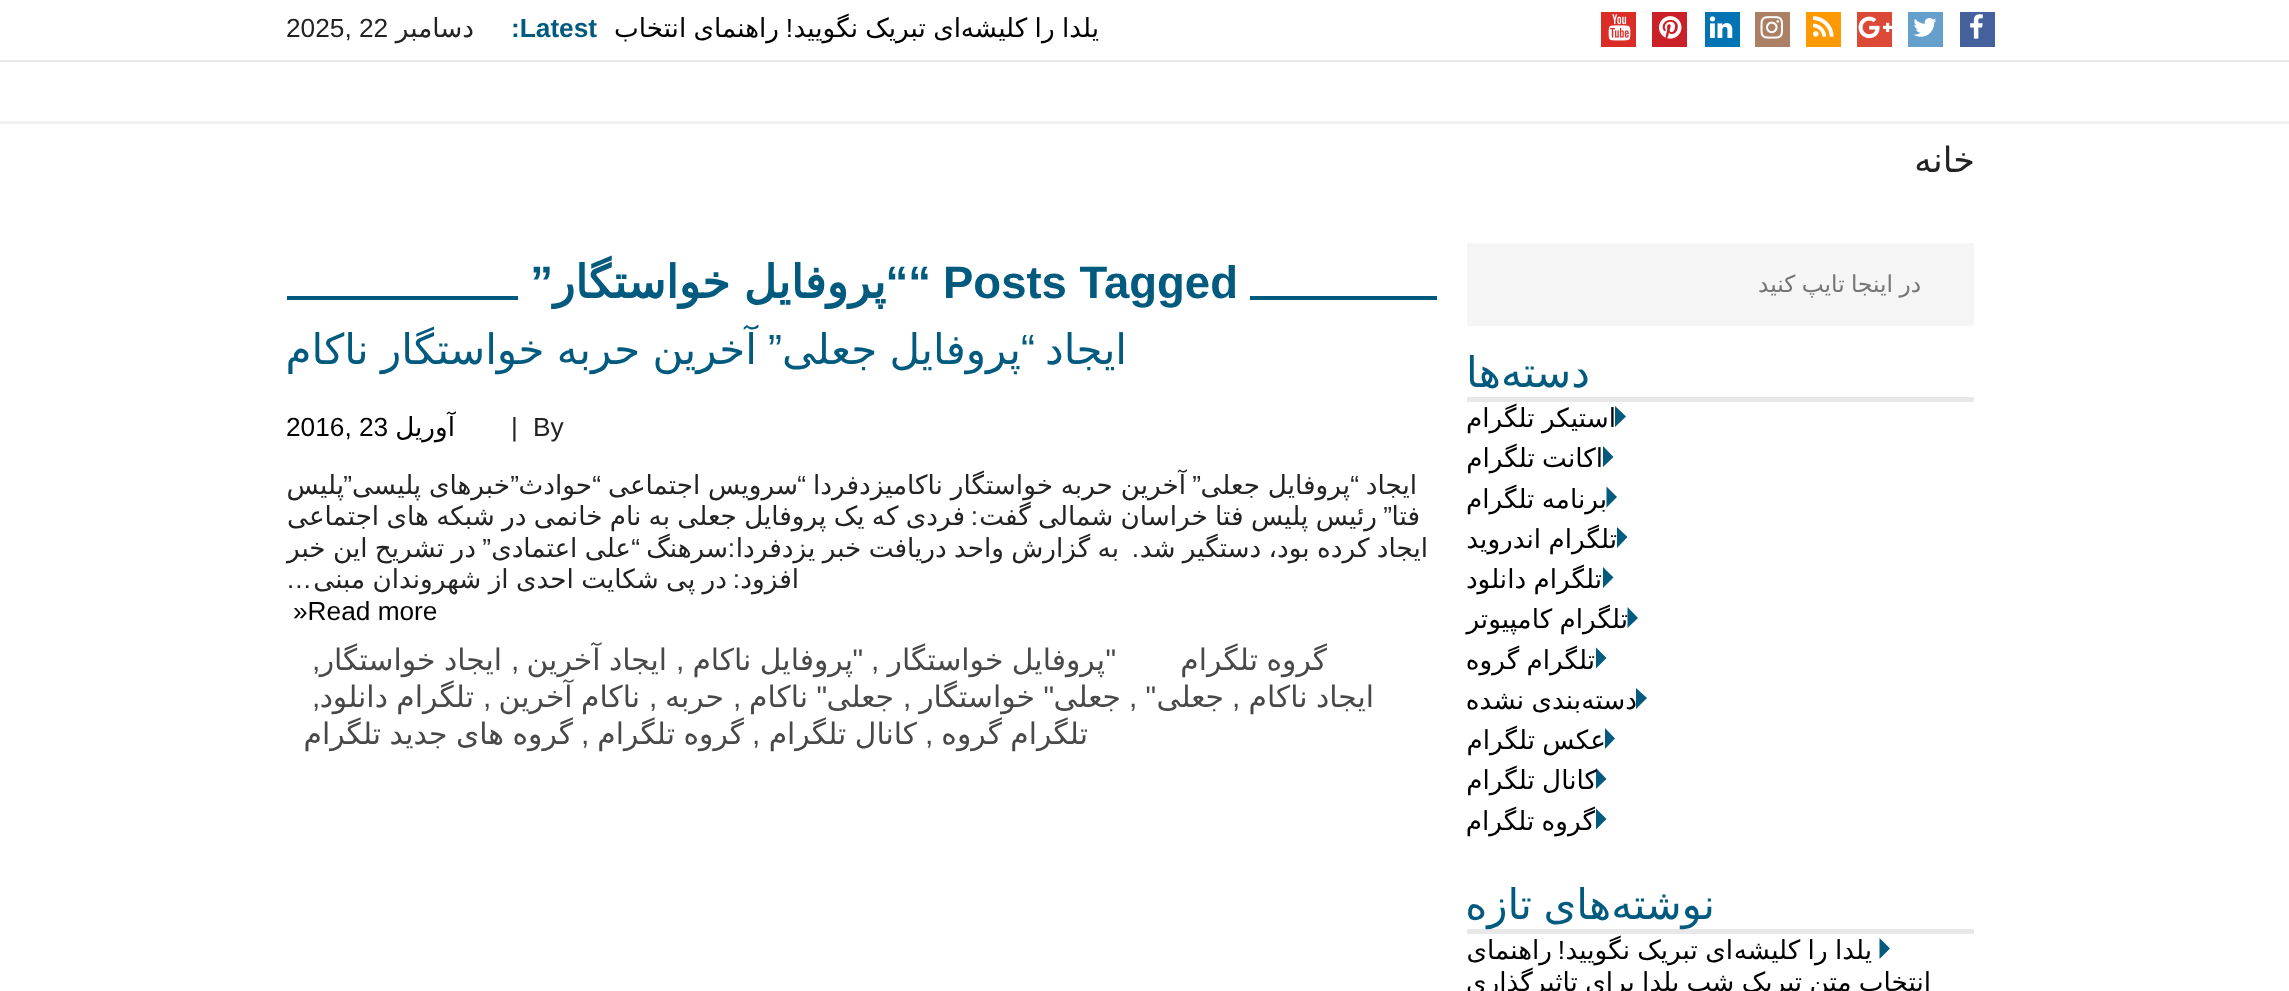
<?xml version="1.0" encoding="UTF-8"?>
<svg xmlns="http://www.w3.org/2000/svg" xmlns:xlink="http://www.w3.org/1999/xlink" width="2289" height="991">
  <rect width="100%" height="100%" fill="#ffffff" />
  <rect x="1960" y="12" width="35" height="35" fill="#44619d" />
  <image x="1970" y="14" width="13" height="25" xlink:href="image1.png" />
  <rect x="1908" y="12" width="35" height="35" fill="#659fcb" />
  <image x="1913" y="18" width="24" height="19" xlink:href="image2.png" />
  <rect x="1857" y="12" width="35" height="35" fill="#dc4937" />
  <image x="1858" y="16" width="34" height="23" xlink:href="image3.png" />
  <rect x="1806" y="12" width="35" height="35" fill="#ff9900" />
  <image x="1813" y="16" width="21" height="21" xlink:href="image4.png" />
  <rect x="1755" y="12" width="35" height="35" fill="#ac8065" />
  <image x="1760" y="16" width="23" height="23" xlink:href="image5.png" />
  <rect x="1705" y="12" width="35" height="35" fill="#0274b3" />
  <image x="1709" y="16" width="24" height="22" xlink:href="image6.png" />
  <rect x="1652" y="12" width="35" height="35" fill="#cb2027" />
  <image x="1659" y="16" width="23" height="23" xlink:href="image7.png" />
  <rect x="1601" y="12" width="35" height="35" fill="#dc2c28" />
  <image x="1608" y="14" width="23" height="27" xlink:href="image8.png" />
  <rect y="60" width="2289" height="2" fill="#eaeaea" />
  <rect y="121" width="2289" height="3" fill="#f1f1f1" />
  <rect x="1467" y="243" width="507" height="83" fill="#f5f5f5" />
  <rect x="1467" y="397" width="507" height="5" fill="#e8e8e8" />
  <path d="M 1615 427 v -21 l 11 10.5 z" fill="#025a7e" />
  <path d="M 1603 467 v -21 l 10.5 11 z" fill="#025a7e" />
  <path d="M 1606.5 507.5 v -21 l 10.5 10.5 z" fill="#025a7e" />
  <path d="M 1617 548 v -21 l 10.5 10 z" fill="#025a7e" />
  <path d="M 1603 588 v -21 l 10.5 10.5 z" fill="#025a7e" />
  <path d="M 1627.5 628 v -21 l 10.5 11 z" fill="#025a7e" />
  <path d="M 1596 668.5 v -21 l 10.5 10.5 z" fill="#025a7e" />
  <path d="M 1636 709 v -21 l 11 10 z" fill="#025a7e" />
  <path d="M 1605 749 v -21 l 10 10.5 z" fill="#025a7e" />
  <path d="M 1596 789 v -21 l 10.5 11 z" fill="#025a7e" />
  <path d="M 1596 829.5 v -21 l 10.5 10.5 z" fill="#025a7e" />
  <rect x="1467" y="929" width="507" height="5" fill="#e8e8e8" />
  <path d="M 1879.5 959 v -21 l 10.5 10.5 z" fill="#025a7e" />
  <rect x="287" y="296" width="1150" height="4" fill="#025a7e" />
  <rect x="518" y="296" width="732" height="4" fill="#ffffff" />
  <text x="1099" y="37" word-spacing="-1" style="font-family: DejaVu Sans; font-size: 26.25px; direction: rtl; fill: #000000">یلدا را کلیشه</text>
  <text x="961" y="37" word-spacing="-1" style="font-family: DejaVu Sans; font-size: 26.25px; direction: rtl; fill: #000000">ای تبریک نگویید</text>
  <text x="793" y="37" style="font-family: Liberation Sans; font-size: 26.25px; direction: rtl; fill: #000000">!</text>
  <text x="779" y="37" word-spacing="-1" style="font-family: DejaVu Sans; font-size: 26.25px; direction: rtl; fill: #000000">راهنمای انتخاب</text>
  <text x="511" y="37" style="font-family: Liberation Sans; font-size: 26.25px; font-weight: bold; fill: #025a7e">:Latest</text>
  <text x="474" y="37" style="font-family: DejaVu Sans; font-size: 26.25px; direction: rtl; fill: #232323">دسامبر</text>
  <text x="286" y="37" style="font-family: Liberation Sans; font-size: 26.25px; fill: #232323">2025, 22</text>
  <text x="1975" y="172" style="font-family: DejaVu Sans; font-size: 35px; direction: rtl; fill: #232323">خانه</text>
  <text x="1921" y="292" word-spacing="-1" style="font-family: DejaVu Sans; font-size: 23.25px; direction: rtl; fill: #757575">در اینجا تایپ کنید</text>
  <text x="1590" y="387" style="font-family: DejaVu Sans; font-size: 42px; direction: rtl; fill: #025a7e">دسته‌ها</text>
  <text x="1616" y="427" word-spacing="-1" style="font-family: DejaVu Sans; font-size: 26.25px; direction: rtl; fill: #000000">استیکر تلگرام</text>
  <text x="1603" y="467" word-spacing="-1" style="font-family: DejaVu Sans; font-size: 26.25px; direction: rtl; fill: #000000">اکانت تلگرام</text>
  <text x="1607" y="508" word-spacing="-1" style="font-family: DejaVu Sans; font-size: 26.25px; direction: rtl; fill: #000000">برنامه تلگرام</text>
  <text x="1617" y="548" word-spacing="-1" style="font-family: DejaVu Sans; font-size: 26.25px; direction: rtl; fill: #000000">تلگرام اندروید</text>
  <text x="1602" y="588" word-spacing="-1" style="font-family: DejaVu Sans; font-size: 26.25px; direction: rtl; fill: #000000">تلگرام دانلود</text>
  <text x="1628" y="628" word-spacing="-1" style="font-family: DejaVu Sans; font-size: 26.25px; direction: rtl; fill: #000000">تلگرام کامپیوتر</text>
  <text x="1595" y="669" word-spacing="-1" style="font-family: DejaVu Sans; font-size: 26.25px; direction: rtl; fill: #000000">تلگرام گروه</text>
  <text x="1637" y="709" style="font-family: DejaVu Sans; font-size: 26.25px; direction: rtl; fill: #000000">دسته</text>
  <text x="1581" y="709" word-spacing="-1" style="font-family: DejaVu Sans; font-size: 26.25px; direction: rtl; fill: #000000">بندی نشده</text>
  <text x="1606" y="749" word-spacing="-1" style="font-family: DejaVu Sans; font-size: 26.25px; direction: rtl; fill: #000000">عکس تلگرام</text>
  <text x="1597" y="789" word-spacing="-1" style="font-family: DejaVu Sans; font-size: 26.25px; direction: rtl; fill: #000000">کانال تلگرام</text>
  <text x="1595" y="830" word-spacing="-1" style="font-family: DejaVu Sans; font-size: 26.25px; direction: rtl; fill: #000000">گروه تلگرام</text>
  <text x="1715" y="919" word-spacing="-2" style="font-family: DejaVu Sans; font-size: 42px; direction: rtl; fill: #025a7e">نوشته‌های تازه</text>
  <text x="1872" y="959" word-spacing="-1" style="font-family: DejaVu Sans; font-size: 26.25px; direction: rtl; fill: #000000">یلدا را کلیشه</text>
  <text x="1733" y="959" word-spacing="-1" style="font-family: DejaVu Sans; font-size: 26.25px; direction: rtl; fill: #000000">ای تبریک نگویید</text>
  <text x="1565" y="959" style="font-family: Liberation Sans; font-size: 26.25px; direction: rtl; fill: #000000">!</text>
  <text x="1552" y="959" style="font-family: DejaVu Sans; font-size: 26.25px; direction: rtl; fill: #000000">راهنمای</text>
  <text x="1931" y="991" word-spacing="-1" style="font-family: DejaVu Sans; font-size: 26.25px; direction: rtl; fill: #000000">انتخاب متن تبریک شب یلدا برای تاثیرگذاری</text>
  <text x="943" y="298" style="font-family: Liberation Sans; font-size: 45.5px; font-weight: bold; fill: #025a7e">Posts Tagged</text>
  <text x="931" y="298" style="font-family: Liberation Sans; font-size: 45.5px; font-weight: bold; direction: rtl; fill: #025a7e">““</text>
  <text x="886" y="298" word-spacing="-1" style="font-family: DejaVu Sans; font-size: 45.5px; font-weight: bold; direction: rtl; fill: #025a7e">پروفایل خواستگار</text>
  <text x="553" y="298" style="font-family: Liberation Sans; font-size: 45.5px; font-weight: bold; direction: rtl; fill: #025a7e">”</text>
  <text x="1127" y="364" style="font-family: DejaVu Sans; font-size: 42px; direction: rtl; fill: #025a7e">ایجاد</text>
  <text x="1035" y="364" style="font-family: Liberation Sans; font-size: 42px; direction: rtl; fill: #025a7e">“</text>
  <text x="1021" y="364" word-spacing="-1" style="font-family: DejaVu Sans; font-size: 42px; direction: rtl; fill: #025a7e">پروفایل جعلی</text>
  <text x="782" y="364" style="font-family: Liberation Sans; font-size: 42px; direction: rtl; fill: #025a7e">”</text>
  <text x="757" y="364" word-spacing="-1" style="font-family: DejaVu Sans; font-size: 42px; direction: rtl; fill: #025a7e">آخرین حربه خواستگار ناکام</text>
  <text x="533" y="436" style="font-family: Liberation Sans; font-size: 26.25px; fill: #232323">By</text>
  <text x="511" y="436" style="font-family: Liberation Sans; font-size: 26.25px; fill: #232323">|</text>
  <text x="455" y="436" style="font-family: DejaVu Sans; font-size: 26.25px; direction: rtl; fill: #000000">آوریل</text>
  <text x="286" y="436" style="font-family: Liberation Sans; font-size: 26.25px; fill: #000000">2016, 23</text>
  <text x="1417" y="494" style="font-family: DejaVu Sans; font-size: 26.25px; direction: rtl; fill: #232323">ایجاد</text>
  <text x="1359" y="494" style="font-family: Liberation Sans; font-size: 26.25px; direction: rtl; fill: #232323">“</text>
  <text x="1350" y="494" word-spacing="-0.5" style="font-family: DejaVu Sans; font-size: 26.25px; direction: rtl; fill: #232323">پروفایل جعلی</text>
  <text x="1201" y="494" style="font-family: Liberation Sans; font-size: 26.25px; direction: rtl; fill: #232323">”</text>
  <text x="1186" y="494" word-spacing="-0.5" style="font-family: DejaVu Sans; font-size: 26.25px; direction: rtl; fill: #232323">آخرین حربه خواستگار ناکامیزدفردا</text>
  <text x="806" y="494" style="font-family: Liberation Sans; font-size: 26.25px; direction: rtl; fill: #232323">“</text>
  <text x="798" y="494" word-spacing="-0.5" style="font-family: DejaVu Sans; font-size: 26.25px; direction: rtl; fill: #232323">سرویس اجتماعی</text>
  <text x="601" y="494" style="font-family: Liberation Sans; font-size: 26.25px; direction: rtl; fill: #232323">“</text>
  <text x="592" y="494" style="font-family: DejaVu Sans; font-size: 26.25px; direction: rtl; fill: #232323">حوادث</text>
  <text x="519" y="494" style="font-family: Liberation Sans; font-size: 26.25px; direction: rtl; fill: #232323">”</text>
  <text x="510" y="494" word-spacing="-0.5" style="font-family: DejaVu Sans; font-size: 26.25px; direction: rtl; fill: #232323">خبرهای پلیسی</text>
  <text x="352" y="494" style="font-family: Liberation Sans; font-size: 26.25px; direction: rtl; fill: #232323">”</text>
  <text x="344" y="494" style="font-family: DejaVu Sans; font-size: 26.25px; direction: rtl; fill: #232323">پلیس</text>
  <text x="1420" y="525" style="font-family: DejaVu Sans; font-size: 26.25px; direction: rtl; fill: #232323">فتا</text>
  <text x="1392" y="525" style="font-family: Liberation Sans; font-size: 26.25px; direction: rtl; fill: #232323">”</text>
  <text x="1377" y="525" word-spacing="-1" style="font-family: DejaVu Sans; font-size: 26.25px; direction: rtl; fill: #232323">رئیس پلیس فتا خراسان شمالی گفت</text>
  <text x="965" y="525" word-spacing="-1" style="font-family: DejaVu Sans; font-size: 26.25px; direction: rtl; fill: #232323">فردی که یک پروفایل جعلی به نام خانمی در شبکه های اجتماعی</text>
  <text x="978" y="525" style="font-family: Liberation Sans; font-size: 26.25px; direction: rtl; fill: #232323">:</text>
  <text x="1428" y="557" word-spacing="-1" style="font-family: DejaVu Sans; font-size: 26.25px; direction: rtl; fill: #232323">ایجاد کرده بود، دستگیر شد</text>
  <text x="1119" y="557" word-spacing="-1" style="font-family: DejaVu Sans; font-size: 26.25px; direction: rtl; fill: #232323">به گزارش واحد دریافت خبر یزدفردا</text>
  <text x="728" y="557" style="font-family: DejaVu Sans; font-size: 26.25px; direction: rtl; fill: #232323">سرهنگ</text>
  <text x="640" y="557" style="font-family: Liberation Sans; font-size: 26.25px; direction: rtl; fill: #232323">“</text>
  <text x="631" y="557" word-spacing="-1" style="font-family: DejaVu Sans; font-size: 26.25px; direction: rtl; fill: #232323">علی اعتمادی</text>
  <text x="491" y="557" style="font-family: Liberation Sans; font-size: 26.25px; direction: rtl; fill: #232323">”</text>
  <text x="476" y="557" word-spacing="-1" style="font-family: DejaVu Sans; font-size: 26.25px; direction: rtl; fill: #232323">در تشریح این خبر</text>
  <text x="1139" y="557" style="font-family: Liberation Sans; font-size: 26.25px; direction: rtl; fill: #232323">.</text>
  <text x="735" y="557" style="font-family: Liberation Sans; font-size: 26.25px; direction: rtl; fill: #232323">:</text>
  <text x="799" y="588" style="font-family: DejaVu Sans; font-size: 26.25px; direction: rtl; fill: #232323">افزود</text>
  <text x="740" y="588" style="font-family: Liberation Sans; font-size: 26.25px; direction: rtl; fill: #232323">:</text>
  <text x="727" y="588" word-spacing="-1" style="font-family: DejaVu Sans; font-size: 26.25px; direction: rtl; fill: #232323">در پی شکایت احدی از شهروندان مبنی</text>
  <text x="312" y="588" style="font-family: Liberation Sans; font-size: 26.25px; direction: rtl; fill: #232323">…</text>
  <text x="293" y="620" style="font-family: Liberation Sans; font-size: 26.25px; fill: #000000">»Read more</text>
  <text x="1327" y="670" word-spacing="-1" style="font-family: DejaVu Sans; font-size: 29.75px; direction: rtl; fill: #484848">گروه تلگرام</text>
  <text x="1116" y="670" style="font-family: Liberation Sans; font-size: 29.75px; direction: rtl; fill: #484848">"</text>
  <text x="1105" y="670" word-spacing="-1" style="font-family: DejaVu Sans; font-size: 29.75px; direction: rtl; fill: #484848">پروفایل خواستگار</text>
  <text x="863" y="670" style="font-family: Liberation Sans; font-size: 29.75px; direction: rtl; fill: #484848">"</text>
  <text x="853" y="670" word-spacing="-1" style="font-family: DejaVu Sans; font-size: 29.75px; direction: rtl; fill: #484848">پروفایل ناکام</text>
  <text x="667" y="670" word-spacing="-1" style="font-family: DejaVu Sans; font-size: 29.75px; direction: rtl; fill: #484848">ایجاد آخرین</text>
  <text x="502" y="670" word-spacing="-1" style="font-family: DejaVu Sans; font-size: 29.75px; direction: rtl; fill: #484848">ایجاد خواستگار</text>
  <text x="871" y="670" style="font-family: Liberation Sans; font-size: 29.75px; fill: #484848">,</text>
  <text x="676" y="670" style="font-family: Liberation Sans; font-size: 29.75px; fill: #484848">,</text>
  <text x="511" y="670" style="font-family: Liberation Sans; font-size: 29.75px; fill: #484848">,</text>
  <text x="312" y="670" style="font-family: Liberation Sans; font-size: 29.75px; fill: #484848">,</text>
  <text x="1374" y="707" word-spacing="-1" style="font-family: DejaVu Sans; font-size: 29.75px; direction: rtl; fill: #484848">ایجاد ناکام</text>
  <text x="1224" y="707" style="font-family: DejaVu Sans; font-size: 29.75px; direction: rtl; fill: #484848">جعلی</text>
  <text x="1156" y="707" style="font-family: Liberation Sans; font-size: 29.75px; direction: rtl; fill: #484848">"</text>
  <text x="1121" y="707" style="font-family: DejaVu Sans; font-size: 29.75px; direction: rtl; fill: #484848">جعلی</text>
  <text x="1054" y="707" style="font-family: Liberation Sans; font-size: 29.75px; direction: rtl; fill: #484848">"</text>
  <text x="1035" y="707" style="font-family: DejaVu Sans; font-size: 29.75px; direction: rtl; fill: #484848">خواستگار</text>
  <text x="894" y="707" style="font-family: DejaVu Sans; font-size: 29.75px; direction: rtl; fill: #484848">جعلی</text>
  <text x="827" y="707" style="font-family: Liberation Sans; font-size: 29.75px; direction: rtl; fill: #484848">"</text>
  <text x="808" y="707" style="font-family: DejaVu Sans; font-size: 29.75px; direction: rtl; fill: #484848">ناکام</text>
  <text x="640" y="707" word-spacing="-1" style="font-family: DejaVu Sans; font-size: 29.75px; direction: rtl; fill: #484848">ناکام آخرین</text>
  <text x="474" y="707" word-spacing="-1" style="font-family: DejaVu Sans; font-size: 29.75px; direction: rtl; fill: #484848">تلگرام دانلود</text>
  <text x="1232" y="707" style="font-family: Liberation Sans; font-size: 29.75px; fill: #484848">,</text>
  <text x="1129" y="707" style="font-family: Liberation Sans; font-size: 29.75px; fill: #484848">,</text>
  <text x="903" y="707" style="font-family: Liberation Sans; font-size: 29.75px; fill: #484848">,</text>
  <text x="733" y="707" style="font-family: Liberation Sans; font-size: 29.75px; fill: #484848">,</text>
  <text x="724" y="707" style="font-family: DejaVu Sans; font-size: 29.75px; direction: rtl; fill: #484848">حربه</text>
  <text x="649" y="707" style="font-family: Liberation Sans; font-size: 29.75px; fill: #484848">,</text>
  <text x="483" y="707" style="font-family: Liberation Sans; font-size: 29.75px; fill: #484848">,</text>
  <text x="312" y="707" style="font-family: Liberation Sans; font-size: 29.75px; fill: #484848">,</text>
  <text x="1088" y="744" word-spacing="-1" style="font-family: DejaVu Sans; font-size: 29.75px; direction: rtl; fill: #484848">تلگرام گروه</text>
  <text x="925" y="744" style="font-family: Liberation Sans; font-size: 29.75px; fill: #484848">,</text>
  <text x="917" y="744" word-spacing="-1" style="font-family: DejaVu Sans; font-size: 29.75px; direction: rtl; fill: #484848">کانال تلگرام</text>
  <text x="752" y="744" style="font-family: Liberation Sans; font-size: 29.75px; fill: #484848">,</text>
  <text x="744" y="744" word-spacing="-1" style="font-family: DejaVu Sans; font-size: 29.75px; direction: rtl; fill: #484848">گروه تلگرام</text>
  <text x="581" y="744" style="font-family: Liberation Sans; font-size: 29.75px; fill: #484848">,</text>
  <text x="573" y="744" word-spacing="-1" style="font-family: DejaVu Sans; font-size: 29.75px; direction: rtl; fill: #484848">گروه های جدید تلگرام</text>
</svg>
